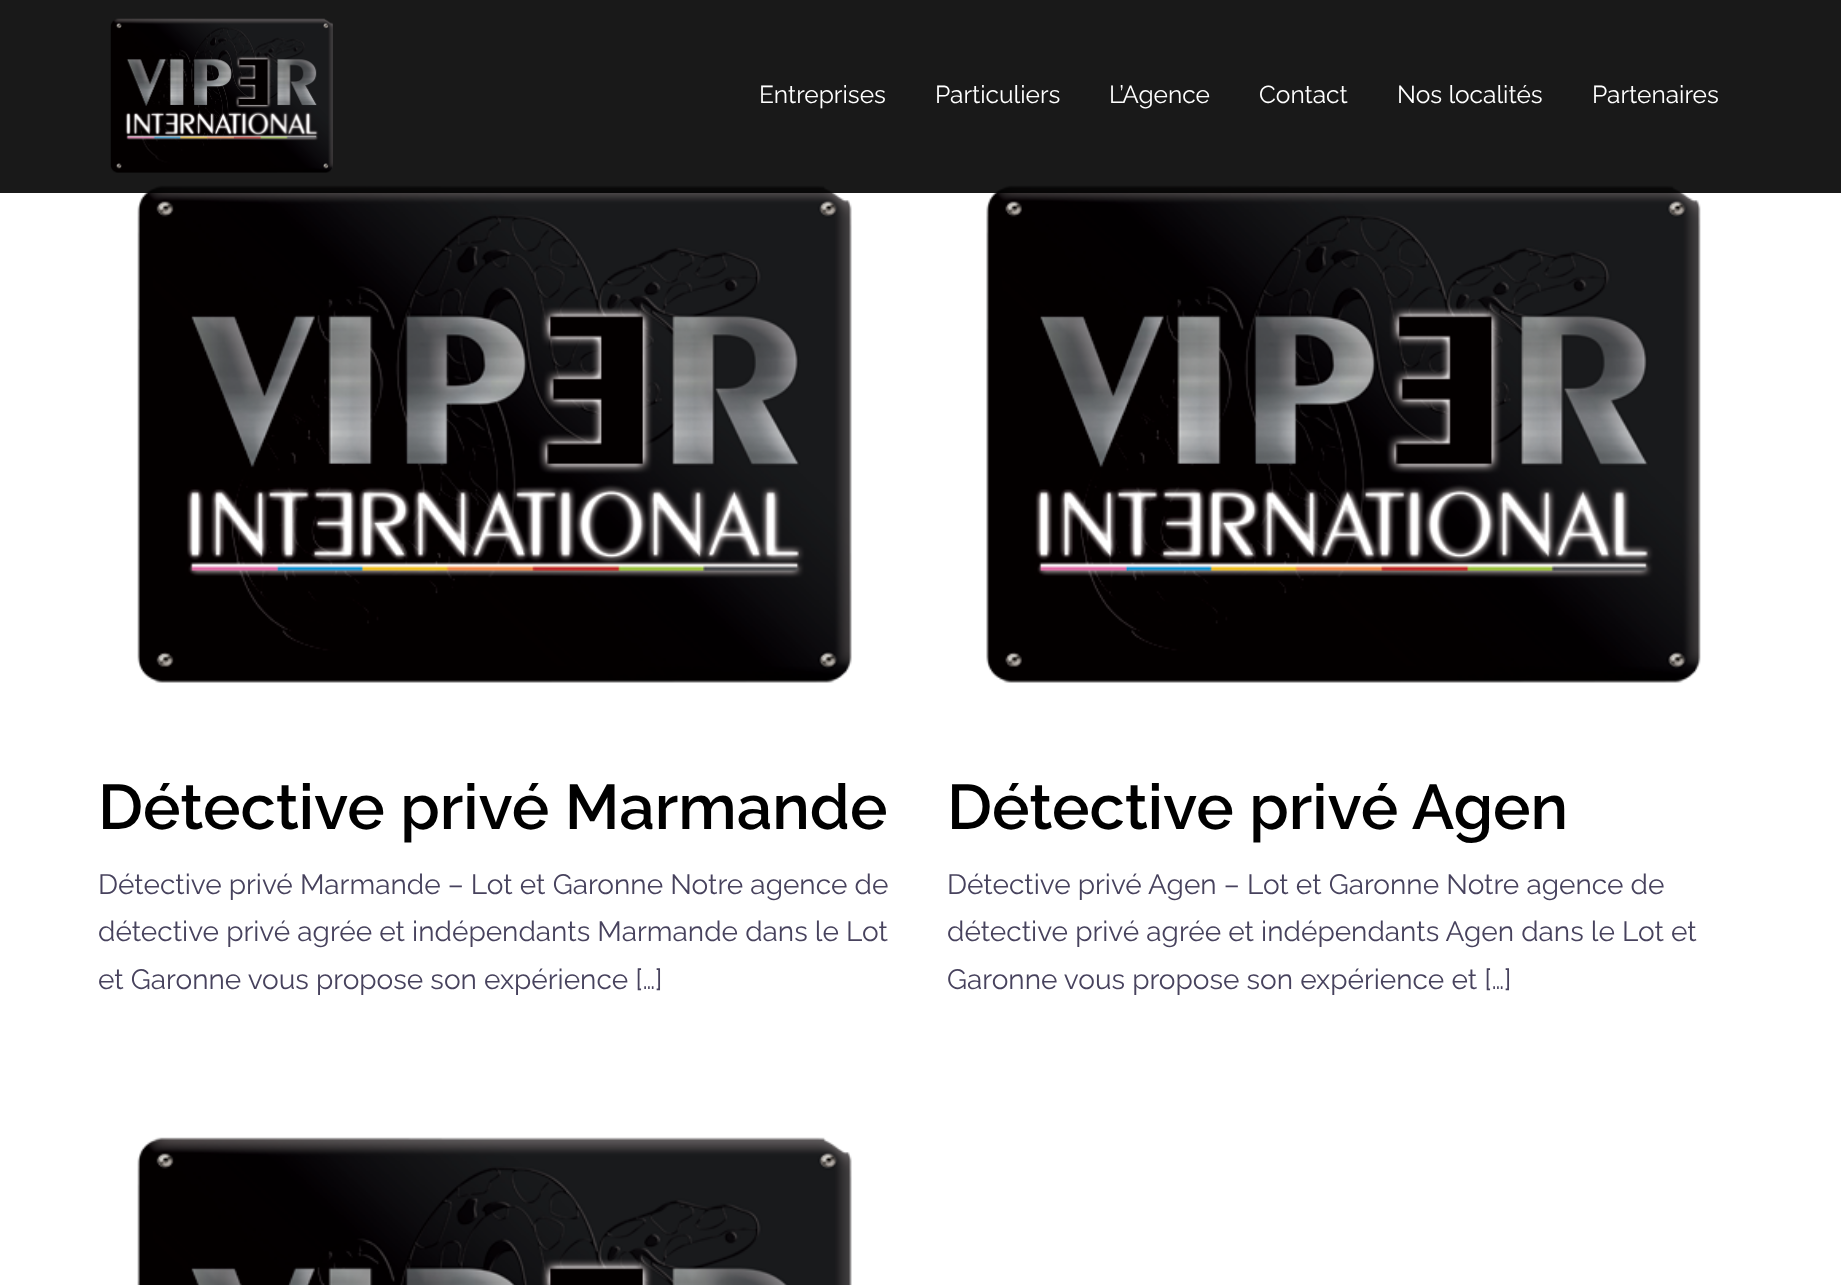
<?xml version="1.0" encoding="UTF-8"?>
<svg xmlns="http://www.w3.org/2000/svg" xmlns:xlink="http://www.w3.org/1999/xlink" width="1841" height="1285">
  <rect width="100%" height="100%" fill="#ffffff" />
  <image x="137" y="185" width="715" height="498" xlink:href="image2.png" />
  <image x="986" y="185" width="715" height="498" xlink:href="image3.png" />
  <rect width="1841" height="193" fill="#000000" fill-opacity="0.9" />
  <image x="110" y="18" width="223" height="155" xlink:href="image1.png" />
  <image x="137" y="1137" width="715" height="148" xlink:href="image4.png" />
  <text x="759" y="103" style="font-family: Raleway; font-size: 24.5px; fill: #ffffff">Entreprises</text>
  <text x="935" y="103" style="font-family: Raleway; font-size: 24.5px; fill: #ffffff">Particuliers</text>
  <text x="1109" y="103" style="font-family: Raleway; font-size: 24.5px; fill: #ffffff">L’Agence</text>
  <text x="1259" y="103" style="font-family: Raleway; font-size: 24.5px; fill: #ffffff">Contact</text>
  <text x="1397" y="103" style="font-family: Raleway; font-size: 24.5px; fill: #ffffff">Nos localités</text>
  <text x="1592" y="103" style="font-family: Raleway; font-size: 24.5px; fill: #ffffff">Partenaires</text>
  <text x="98" y="829" style="font-family: Raleway; font-size: 63px; font-weight: 600; fill: #000000">Détective privé Marmande</text>
  <text x="98" y="894" style="font-family: Raleway; font-size: 28px; fill: #47425d">Détective privé Marmande – Lot et Garonne Notre agence de</text>
  <text x="98" y="941" style="font-family: Raleway; font-size: 28px; fill: #47425d">détective privé agrée et indépendants Marmande dans le Lot</text>
  <text x="98" y="989" style="font-family: Raleway; font-size: 28px; fill: #47425d">et Garonne vous propose son expérience […]</text>
  <text x="947" y="829" style="font-family: Raleway; font-size: 63px; font-weight: 600; fill: #000000">Détective privé Agen</text>
  <text x="947" y="894" style="font-family: Raleway; font-size: 28px; fill: #47425d">Détective privé Agen – Lot et Garonne Notre agence de</text>
  <text x="947" y="941" style="font-family: Raleway; font-size: 28px; fill: #47425d">détective privé agrée et indépendants Agen dans le Lot et</text>
  <text x="947" y="989" style="font-family: Raleway; font-size: 28px; fill: #47425d">Garonne vous propose son expérience et […]</text>
</svg>
